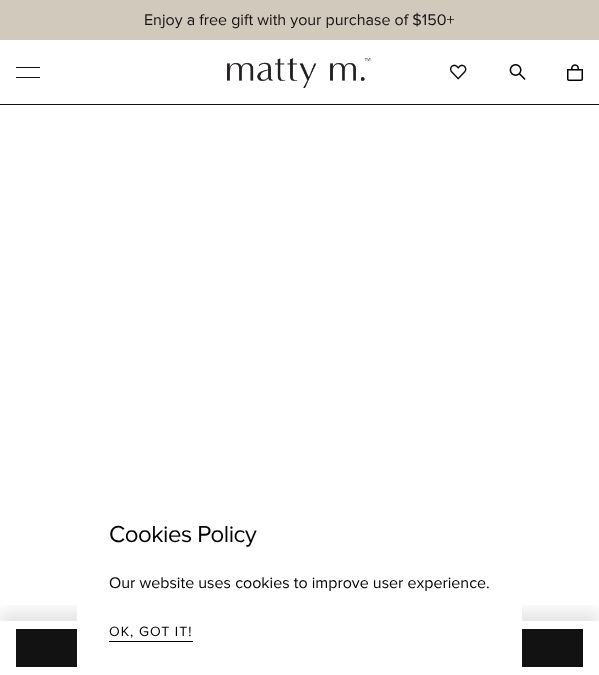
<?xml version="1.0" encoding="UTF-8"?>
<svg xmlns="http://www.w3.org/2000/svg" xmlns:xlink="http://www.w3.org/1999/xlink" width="599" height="675">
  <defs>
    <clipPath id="clip1"><rect x="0" y="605" width="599" height="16" /></clipPath>
  </defs>
  <rect width="100%" height="100%" fill="#ffffff" />
  <rect width="599" height="40" fill="#d1c9bc" />
  <rect y="104" width="599" height="1" fill="#121212" />
  <rect x="16" y="67" width="24" height="1" fill="#121212" />
  <rect x="16" y="77" width="24" height="1" fill="#121212" />
  <image x="227" y="58" width="144" height="30" xlink:href="image1.png" />
  <image x="449" y="64" width="18" height="16" xlink:href="image2.png" />
  <image x="509" y="64" width="17" height="16" xlink:href="image3.png" />
  <image x="567" y="64" width="16" height="17" xlink:href="image4.png" />
  <g clip-path="url(#clip1)">
    <rect y="611" width="599" height="54" fill="#000000" fill-opacity="0.1" filter="blur(7.5px)" />
  </g>
  <rect x="16" y="629" width="567" height="38" fill="#121212" />
  <rect x="77" y="601" width="445" height="66" fill="#ffffff" />
  <rect x="109" y="641" width="84" height="1" fill="#000000" />
  <text x="144" y="25" style="font-family: Proxima Nova; font-size: 16px; fill: #121212">Enjoy a free gift with your purchase of $150+</text>
  <text x="109" y="542" style="font-family: Proxima Nova; font-size: 24px; letter-spacing: -0.5px; fill: #000000">Cookies Policy</text>
  <text x="109" y="588" style="font-family: Proxima Nova; font-size: 16px; fill: #000000">Our website uses cookies to improve user experience.</text>
  <text x="109" y="636" style="font-family: Proxima Nova; font-size: 14px; letter-spacing: 1px; fill: #000000">OK, GOT IT!</text>
</svg>
